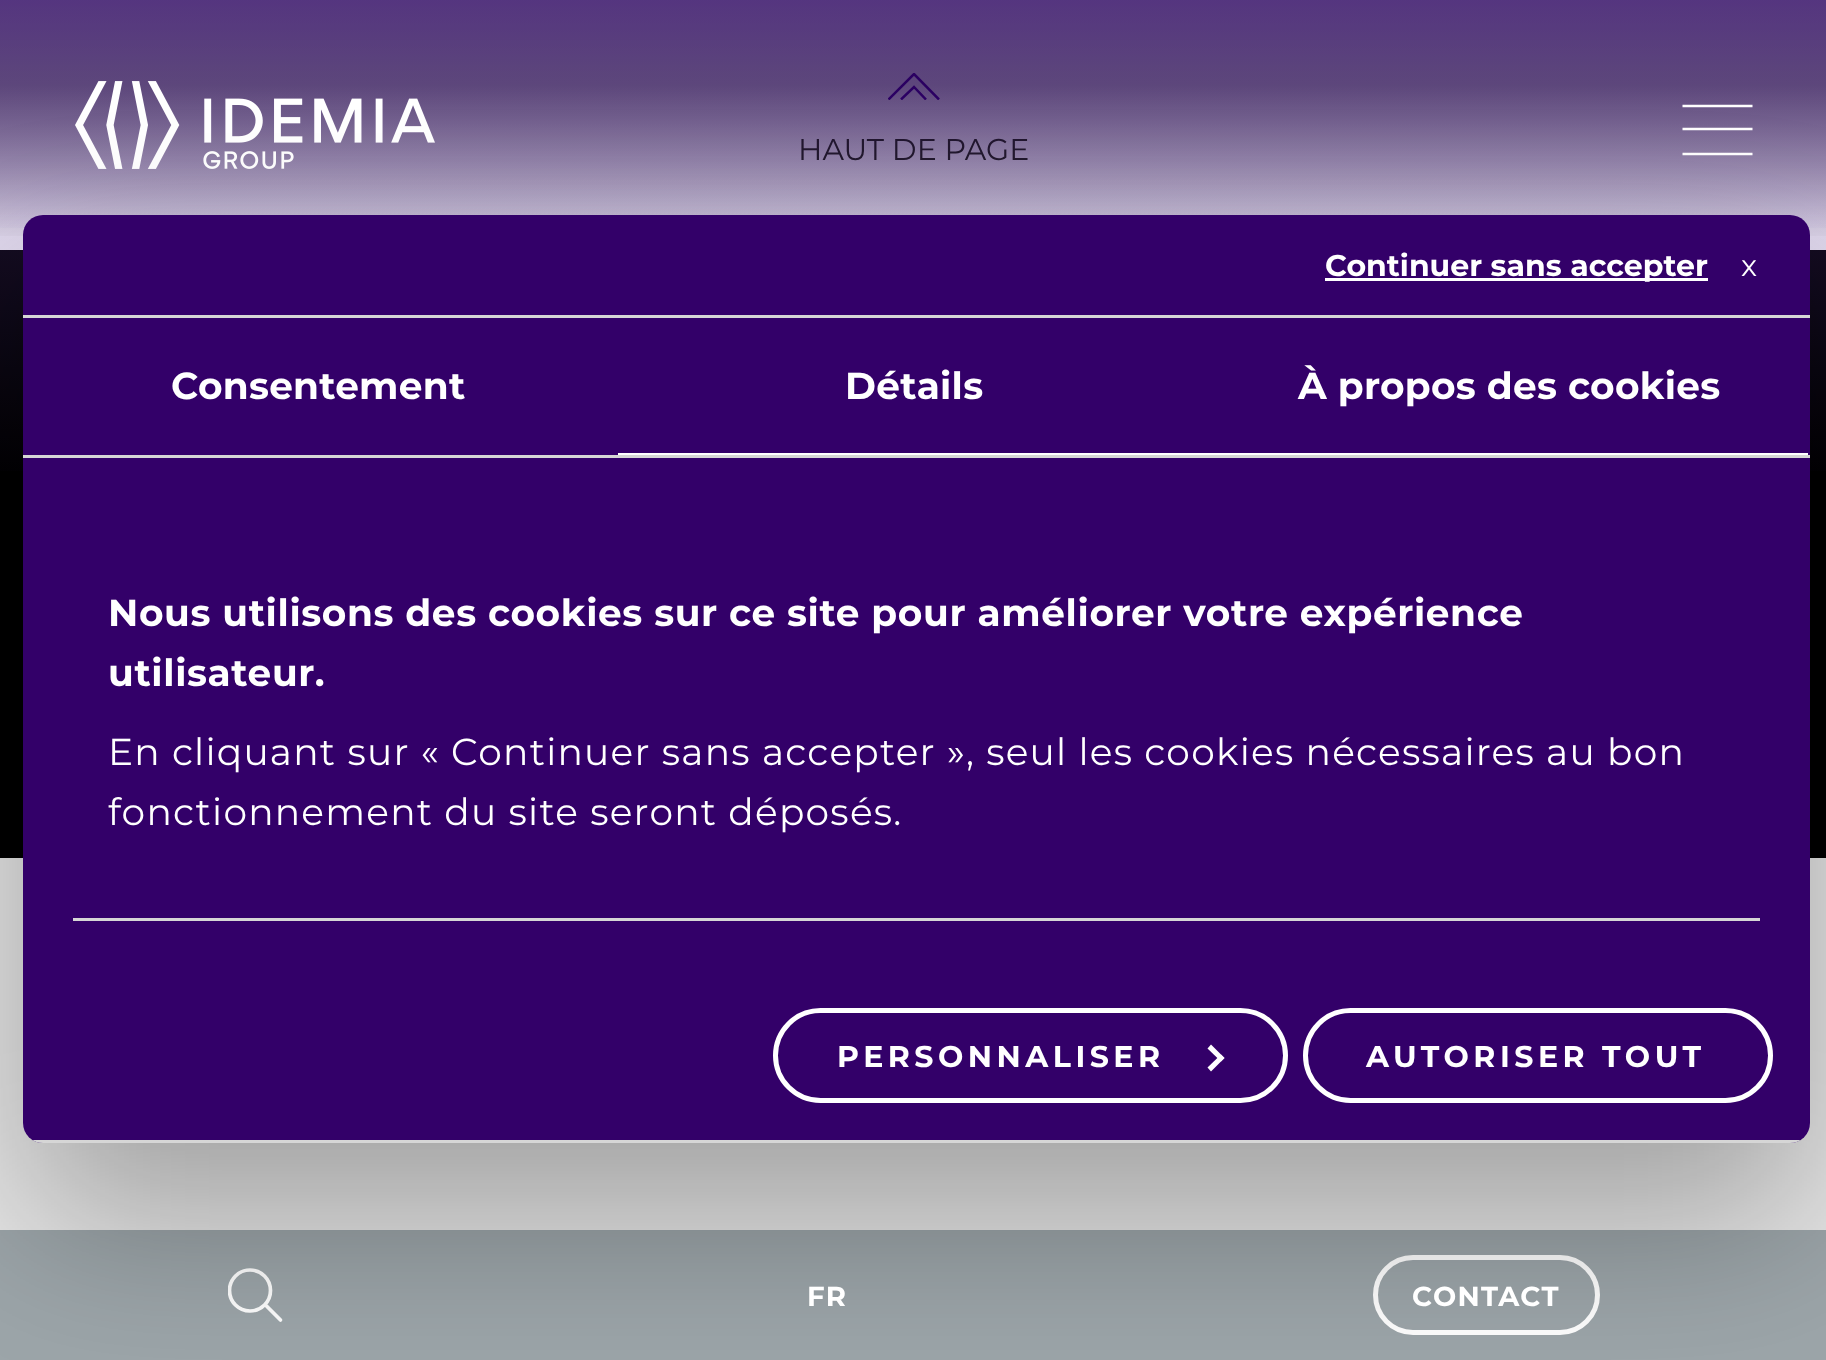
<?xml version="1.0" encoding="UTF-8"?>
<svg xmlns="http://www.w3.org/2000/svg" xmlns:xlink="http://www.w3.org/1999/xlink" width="1826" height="1360">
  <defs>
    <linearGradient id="g1" gradientUnits="userSpaceOnUse" x1="914" y1="-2.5" x2="914" y2="623"><stop offset="0" stop-color="#623ba5" stop-opacity="0.4" /><stop offset="0.8" stop-color="#623ba5" stop-opacity="0" /></linearGradient>
    <clipPath id="clip1"><rect x="888" y="73" width="52" height="27" /></clipPath>
    <clipPath id="clip2"><rect x="228" y="1268" width="55" height="55" /></clipPath>
    <linearGradient id="g2" gradientUnits="userSpaceOnUse" x1="914" y1="0" x2="914" y2="243"><stop offset="0" stop-color="#000000" stop-opacity="0.5" /><stop offset="0.35" stop-color="#000000" stop-opacity="0.5" /><stop offset="1" stop-color="#000000" stop-opacity="0" /></linearGradient>
    <linearGradient id="g3" gradientUnits="userSpaceOnUse" x1="914" y1="0" x2="914" y2="243"><stop offset="0" stop-color="#430099" stop-opacity="0.4" /><stop offset="0.99" stop-color="#430099" stop-opacity="0" /></linearGradient>
    <clipPath id="clip3"><path d="M 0 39 h 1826 v 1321 h -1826 z m 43 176 h 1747 c 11 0 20 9 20 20 v 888 c 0 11 -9 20 -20 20 h -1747 c -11 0 -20 -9 -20 -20 v -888 c 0 -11 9 -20 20 -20 z" clip-rule="evenodd" /></clipPath>
    <clipPath id="clip4"><rect x="23" y="215" width="1787" height="928" rx="20" /></clipPath>
  </defs>
  <rect width="100%" height="100%" fill="#ffffff" />
  <rect y="250" width="1826" height="608" fill="#000000" />
  <rect width="1826" height="471" fill="url(#g1)" />
  <g clip-path="url(#clip1)">
    <path d="M 926 99.5 l -12 -12.5 l -13 12.5 m 38 0 l -25 -25.5 l -25.5 25.5" fill="none" stroke="#430099" stroke-width="2.5" />
  </g>
  <rect y="858" width="1826" height="372" fill="#e7e7e7" />
  <rect y="1230" width="1826" height="130" fill="#9da6aa" />
  <g clip-path="url(#clip2)">
    <circle cx="250" cy="1290.5" r="20.5" fill="none" stroke="#ffffff" stroke-width="3.7" />
  </g>
  <path d="M 266.5 1306 l 14 14" fill="none" stroke="#ffffff" stroke-width="3.7" stroke-linecap="round" />
  <rect x="1375.5" y="1257.5" width="222" height="75" rx="37.5" fill="none" stroke="#ffffff" stroke-width="5" />
  <text x="798" y="160" style="font-family: Montserrat; font-size: 30px; font-weight: 100; fill: #272727">HAUT DE PAGE</text>
  <rect width="1826" height="236" fill="url(#g2)" />
  <rect width="1826" height="228" fill="url(#g3)" />
  <image x="75" y="81" width="360" height="88" xlink:href="image1.png" />
  <path d="M 1682.5 106 h 70 m -70 23 h 70 m -70 25 h 70" fill="none" stroke="#ffffff" stroke-width="2.5" />
  <g clip-path="url(#clip3)">
    <rect x="23" y="295" width="1787" height="928" rx="20" fill="#000000" fill-opacity="0.3" filter="blur(85px)" />
  </g>
  <rect x="23" y="215" width="1787" height="928" rx="20" fill="#330069" />
  <rect x="1305.5" y="1010.5" width="465" height="90" rx="45" fill="none" stroke="#ffffff" stroke-width="5" />
  <text x="1366" y="1067" style="font-family: 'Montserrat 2'; font-size: 30px; font-weight: 100; letter-spacing: 4.5px; fill: #ffffff">AUTORISER TOUT</text>
  <rect x="775.5" y="1010.5" width="510" height="90" rx="45" fill="none" stroke="#ffffff" stroke-width="5" />
  <path d="M 1211 1044.5 l 13.5 13.5 l -3.5 3.5 l -13.5 -13 z" fill="#ffffff" />
  <path d="M 1221 1054.5 l 3.5 3.5 l -13.5 13.5 l -3.5 -4 z" fill="#ffffff" />
  <text x="837" y="1067" style="font-family: 'Montserrat 2'; font-size: 30px; font-weight: 100; letter-spacing: 4.5px; fill: #ffffff">PERSONNALISER</text>
  <text x="1741" y="276" style="font-family: Montserrat; font-size: 30px; font-weight: 100; fill: #ffffff">x</text>
  <rect x="1325" y="278" width="383" height="3" fill="#ffffff" />
  <text x="1325" y="276" style="font-family: 'Montserrat 2'; font-size: 30px; font-weight: 100; fill: #ffffff">Continuer sans accepter</text>
  <text x="1298" y="399" style="font-family: 'Montserrat 2'; font-size: 37.5px; font-weight: 100; letter-spacing: 0.25px; fill: #ffffff">À propos des cookies</text>
  <text x="845" y="399" style="font-family: 'Montserrat 2'; font-size: 37.5px; font-weight: 100; letter-spacing: 0.25px; fill: #ffffff">Détails</text>
  <rect x="618" y="453" width="1190" height="2" fill="#ffffff" />
  <text x="171" y="399" style="font-family: 'Montserrat 2'; font-size: 37.5px; font-weight: 100; letter-spacing: 0.25px; fill: #ffffff">Consentement</text>
  <rect x="23" y="455" width="1787" height="3" fill="#d6d6d6" />
  <text x="108" y="825" style="font-family: Montserrat; font-size: 37.5px; font-weight: 100; letter-spacing: 1.25px; fill: #ffffff">fonctionnement du site seront déposés.</text>
  <text x="108" y="765" style="font-family: Montserrat; font-size: 37.5px; font-weight: 100; letter-spacing: 1.25px; fill: #ffffff">En cliquant sur « Continuer sans accepter », seul les cookies nécessaires au bon</text>
  <text x="108" y="686" style="font-family: 'Montserrat 2'; font-size: 37.5px; font-weight: 100; letter-spacing: 0.62px; fill: #ffffff">utilisateur.</text>
  <text x="108" y="626" style="font-family: 'Montserrat 2'; font-size: 37.5px; font-weight: 100; letter-spacing: 0.62px; fill: #ffffff">Nous utilisons des cookies sur ce site pour améliorer votre expérience</text>
  <rect x="73" y="918" width="1687" height="3" fill="#d6d6d6" />
  <g clip-path="url(#clip4)">
    <rect x="32" y="1140" width="1769" height="3" fill="#d6d6d6" />
  </g>
  <rect x="23" y="315" width="1787" height="3" fill="#d6d6d6" />
  <text x="807" y="1306" style="font-family: 'Montserrat 2'; font-size: 27.5px; font-weight: 100; letter-spacing: 1.25px; fill: #ffffff">FR</text>
  <text x="1412" y="1306" style="font-family: 'Montserrat 2'; font-size: 27.5px; font-weight: 100; letter-spacing: 1.25px; fill: #ffffff">CONTACT</text>
</svg>
